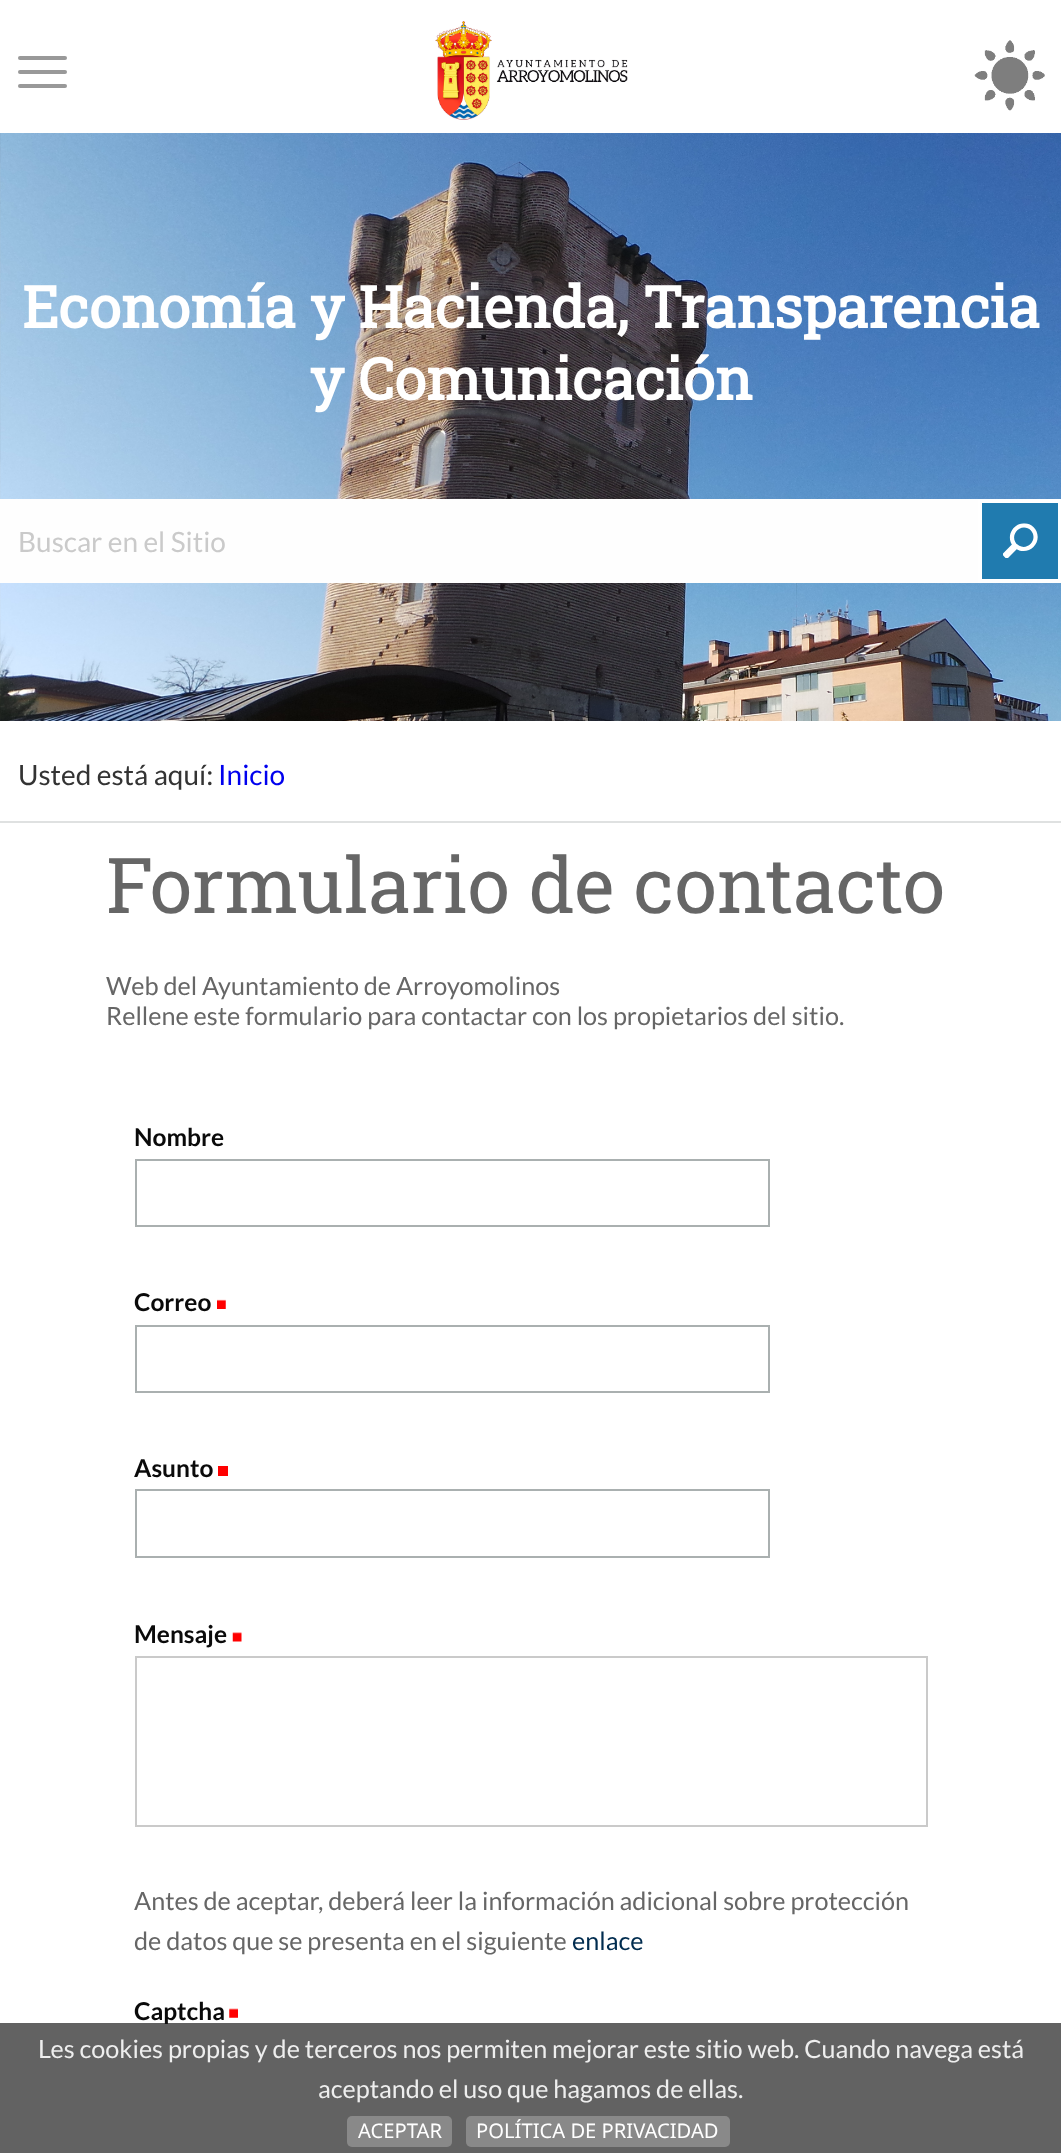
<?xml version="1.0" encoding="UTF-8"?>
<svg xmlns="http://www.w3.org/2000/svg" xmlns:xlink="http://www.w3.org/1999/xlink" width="1061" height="2153">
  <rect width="100%" height="100%" fill="#ffffff" />
  <rect x="18" y="70" width="49" height="4" rx="2" fill="#999999" />
  <rect x="18" y="56" width="49" height="4" rx="2" fill="#999999" />
  <rect x="18" y="84" width="49" height="4" rx="2" fill="#999999" />
  <image x="435" y="21" width="193" height="99" xlink:href="image1.png" />
  <image x="974" y="40" width="71" height="71" xlink:href="image2.png" />
  <image x="0" y="133" width="1061" height="588" xlink:href="image3.png" />
  <rect y="499" width="978" height="84" fill="#fefefe" />
  <rect x="980" y="501" width="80" height="80" fill="#207baf" stroke="#ffffff" stroke-width="4" />
  <image x="1003" y="523" width="35" height="35" xlink:href="image4.png" />
  <rect y="821" width="1061" height="2" fill="#dfe1e1" />
  <rect x="136" y="1160" width="633" height="66" fill="none" stroke="#aab0b0" stroke-width="2" />
  <image x="217" y="1299" width="9" height="10" xlink:href="image5.png" />
  <rect x="136" y="1326" width="633" height="66" fill="none" stroke="#aab0b0" stroke-width="2" />
  <rect x="218" y="1466" width="10" height="10" fill="#ff0000" />
  <rect x="136" y="1490" width="633" height="67" fill="none" stroke="#aab0b0" stroke-width="2" />
  <image x="232" y="1632" width="10" height="10" xlink:href="image6.png" />
  <rect x="136" y="1657" width="791" height="169" fill="none" stroke="#cacaca" stroke-width="2" />
  <image x="229" y="2008" width="9" height="10" xlink:href="image7.png" />
  <text x="22" y="328" style="font-family: Roboto Slab; font-size: 57.75px; font-weight: bold; fill: #ffffff">Economía y Hacienda, Transparencia</text>
  <text x="310" y="400" style="font-family: Roboto Slab; font-size: 57.75px; font-weight: bold; fill: #ffffff">y Comunicación</text>
  <text x="18" y="552" style="font-family: Lato; font-size: 28px; fill: #cacaca">Buscar en el Sitio</text>
  <text x="18" y="785" style="font-family: Lato; font-size: 28px; fill: #333333">Usted está aquí:</text>
  <text x="218" y="785" style="font-family: Lato; font-size: 28px; fill: #0000ee">Inicio</text>
  <text x="106" y="913" style="font-family: Roboto Slab; font-size: 77px; fill: #666666">Formulario de contacto</text>
  <text x="106" y="995" style="font-family: Lato; font-size: 25.2px; fill: #666666">Web del Ayuntamiento de Arroyomolinos</text>
  <text x="106" y="1025" style="font-family: Lato; font-size: 25.2px; fill: #666666">Rellene este formulario para contactar con los propietarios del sitio.</text>
  <text x="134" y="1146" style="font-family: Lato; font-size: 24.5px; font-weight: bold; fill: #0a0a0a">Nombre</text>
  <text x="134" y="1311" style="font-family: Lato; font-size: 24.5px; font-weight: bold; fill: #0a0a0a">Correo</text>
  <text x="134" y="1477" style="font-family: Lato; font-size: 24.5px; font-weight: bold; fill: #0a0a0a">Asunto</text>
  <text x="134" y="1643" style="font-family: Lato; font-size: 24.5px; font-weight: bold; fill: #0a0a0a">Mensaje</text>
  <text x="134" y="1910" style="font-family: Lato; font-size: 25.2px; fill: #666666">Antes de aceptar, deberá leer la información adicional sobre protección</text>
  <text x="134" y="1950" style="font-family: Lato; font-size: 25.2px; fill: #666666">de datos que se presenta en el siguiente</text>
  <text x="572" y="1950" style="font-family: Lato; font-size: 25.2px; fill: #002c4f">enlace</text>
  <text x="134" y="2020" style="font-family: Lato; font-size: 24.5px; font-weight: bold; fill: #0a0a0a">Captcha</text>
  <rect y="2023" width="1061" height="130" fill="#111111" fill-opacity="0.66" />
  <text x="38" y="2058" style="font-family: Lato; font-size: 25.2px; fill: #eeeeee">Les cookies propias y de terceros nos permiten mejorar este sitio web. Cuando navega está</text>
  <text x="318" y="2098" style="font-family: Lato; font-size: 25.2px; fill: #eeeeee">aceptando el uso que hagamos de ellas.</text>
  <rect x="347" y="2116" width="105" height="31" rx="5" fill="#898989" />
  <text x="358" y="2138" style="font-family: Noto Sans; font-size: 20.2px; fill: #ffffff">ACEPTAR</text>
  <rect x="466" y="2116" width="264" height="31" rx="5" fill="#898989" />
  <text x="476" y="2138" style="font-family: Noto Sans; font-size: 20.2px; fill: #ffffff">POLÍTICA DE PRIVACIDAD</text>
</svg>
